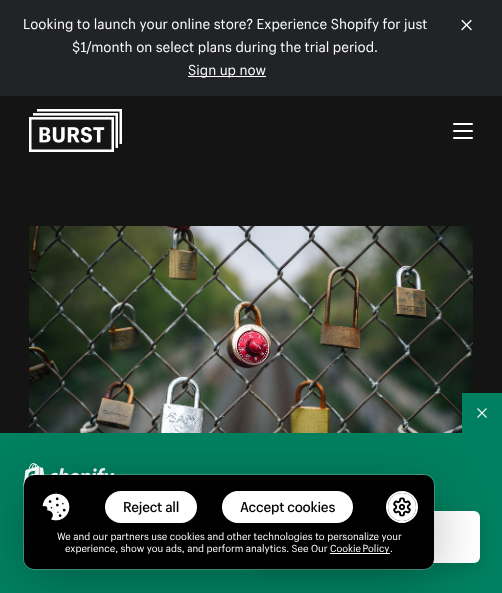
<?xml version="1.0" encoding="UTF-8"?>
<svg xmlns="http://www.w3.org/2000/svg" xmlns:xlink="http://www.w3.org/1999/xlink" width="502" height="593">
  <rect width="100%" height="100%" fill="#141414" />
  <rect width="502" height="96" fill="#212326" />
  <rect x="188" y="76" width="78" height="1" fill="#ffffff" />
  <image x="461" y="19" width="11" height="12" xlink:href="image1.png" />
  <image x="29" y="109" width="93" height="43" xlink:href="image2.png" />
  <image x="453" y="123" width="20" height="16" xlink:href="image3.png" />
  <image x="29" y="226" width="444" height="207" xlink:href="image4.png" />
  <rect x="462" y="393" width="40" height="40" fill="#008060" />
  <image x="477" y="408" width="10" height="10" xlink:href="image5.png" />
  <rect y="433" width="502" height="160" fill="#008060" />
  <image x="23" y="463" width="92" height="23" xlink:href="image6.png" />
  <rect x="257" y="516" width="223" height="52" rx="6" fill="#000000" fill-opacity="0.15" filter="blur(7.5px)" />
  <rect x="257" y="511" width="223" height="52" rx="6" fill="#ffffff" />
  <rect x="23.5" y="474.5" width="411" height="95" rx="10.5" fill="none" stroke="#ffffff" stroke-opacity="0.25" />
  <rect x="24" y="485" width="410" height="94" rx="10" fill="#000000" fill-opacity="0.25" filter="blur(25px)" />
  <rect x="24" y="475" width="410" height="94" rx="10" fill="#000000" />
  <image x="42" y="493" width="28" height="28" xlink:href="image7.png" />
  <rect x="106" y="492" width="90" height="30" rx="15" fill="#ffffff" stroke="#ffffff" stroke-width="2" />
  <rect x="223" y="492" width="129" height="30" rx="15" fill="#ffffff" stroke="#ffffff" stroke-width="2" />
  <circle cx="402" cy="507" r="15" fill="none" stroke="#ffffff" stroke-width="2" />
  <circle cx="402" cy="507" r="14" fill="#ffffff" />
  <image x="393" y="497" width="18" height="20" xlink:href="image8.png" />
  <rect x="330" y="553" width="60" height="1" fill="#ffffff" />
  <text x="23" y="29" style="font-family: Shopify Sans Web; font-size: 14px; fill: #ffffff">Looking to launch your online store? Experience Shopify for just</text>
  <text x="72" y="52" style="font-family: Shopify Sans Web; font-size: 14px; fill: #ffffff">$1/month on select plans during the trial period.</text>
  <text x="188" y="75" style="font-family: Shopify Sans Web; font-size: 14px; fill: #ffffff">Sign up now</text>
  <text x="123" y="512" style="font-family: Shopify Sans; font-size: 14px; font-weight: 500; letter-spacing: -0.25px; fill: #000000">Reject all</text>
  <text x="240" y="512" style="font-family: Shopify Sans; font-size: 14px; font-weight: 500; letter-spacing: -0.25px; fill: #000000">Accept cookies</text>
  <text x="57" y="540" style="font-family: Shopify Sans Web; font-size: 10px; fill: #ffffff">We and our partners use cookies and other technologies to personalize your</text>
  <text x="65" y="552" style="font-family: Shopify Sans Web; font-size: 10px; fill: #ffffff">experience, show you ads, and perform analytics. See Our</text>
  <text x="330" y="552" word-spacing="-1" style="font-family: Shopify Sans Web; font-size: 10px; fill: #ffffff">Cookie Policy</text>
  <text x="390" y="552" style="font-family: Shopify Sans Web; font-size: 10px; fill: #ffffff">.</text>
</svg>
